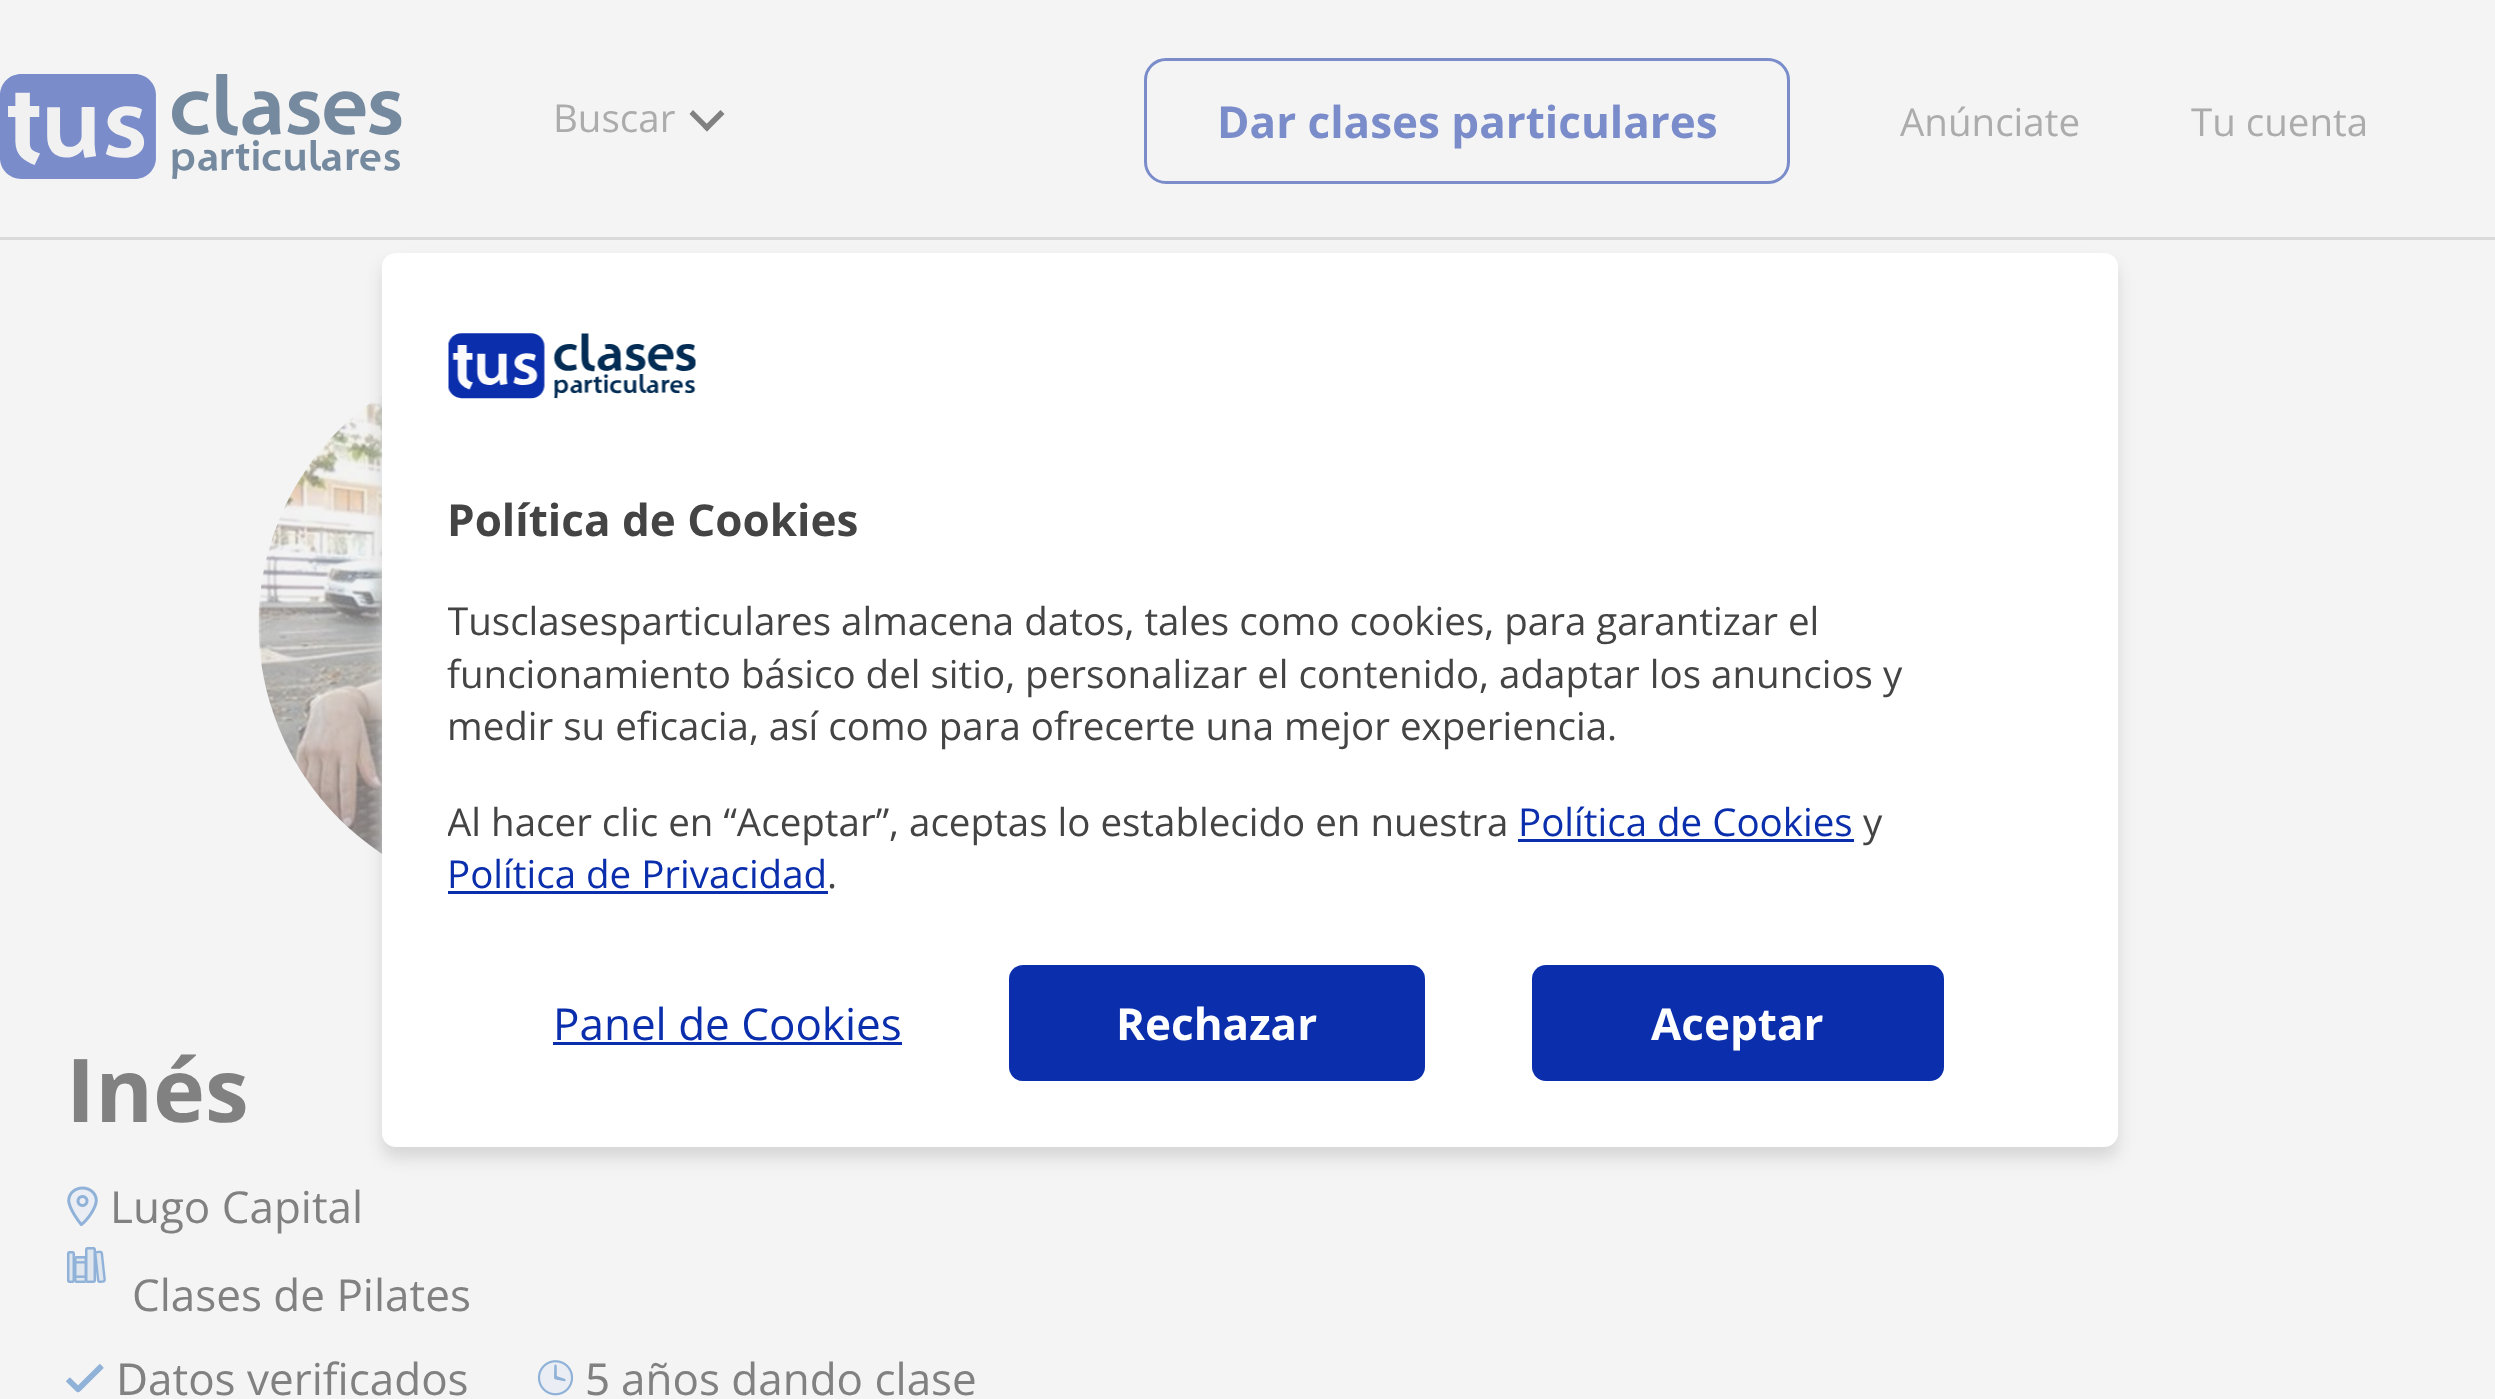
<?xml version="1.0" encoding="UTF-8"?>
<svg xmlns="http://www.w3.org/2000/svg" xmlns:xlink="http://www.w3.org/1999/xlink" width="2495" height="1399">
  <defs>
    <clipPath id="clip1"><rect x="448" y="490" width="1604" height="409" /></clipPath>
  </defs>
  <rect width="100%" height="100%" fill="#f4f4f4" />
  <rect y="237" width="2495" height="3" fill="#dadada" />
  <image x="0" y="74" width="402" height="105" xlink:href="image1.png" />
  <path d="M 703 127.5 l 17.5 -17.5 l 4 4 l -17.5 17.5 z" fill="#818181" />
  <path d="M 689.5 114 l 3.5 -4 l 17.5 17.5 l -3.5 4 z" fill="#818181" />
  <rect x="1145.5" y="59.5" width="643" height="123" rx="20.5" fill="none" stroke="#7a8cca" stroke-width="3" />
  <image x="258" y="394" width="124" height="460" xlink:href="image2.png" />
  <image x="67" y="1186" width="31" height="41" xlink:href="image3.png" />
  <image x="67" y="1247" width="39" height="36" xlink:href="image4.png" />
  <image x="66" y="1364" width="38" height="29" xlink:href="image5.png" />
  <image x="537" y="1360" width="37" height="36" xlink:href="image6.png" />
  <rect x="382" y="264" width="1736" height="894" rx="14" fill="#d6d6d6" filter="blur(8px)" />
  <rect x="382" y="253" width="1736" height="894" rx="14" fill="#ffffff" />
  <image x="448" y="333" width="248" height="66" xlink:href="image7.png" />
  <rect x="1518" y="839" width="336" height="3" fill="#0b2fac" />
  <rect x="448" y="891" width="380" height="3" fill="#0b2fac" />
  <rect x="553" y="1042" width="349" height="3" fill="#0b2fac" />
  <rect x="1009" y="965" width="416" height="116" rx="14" fill="#0b2fac" />
  <rect x="1532" y="965" width="412" height="116" rx="14" fill="#0b2fac" />
  <text x="553" y="132" style="font-family: Open Sans; font-size: 38.5px; fill: #acacac">Buscar</text>
  <text x="1217" y="138" style="font-family: Open Sans; font-size: 44px; font-weight: bold; fill: #7a8cca">Dar clases particulares</text>
  <text x="1900" y="136" style="font-family: Open Sans; font-size: 38.5px; fill: #acacac">Anúnciate</text>
  <text x="2191" y="136" style="font-family: Open Sans; font-size: 38.5px; fill: #acacac">Tu cuenta</text>
  <text x="66" y="1122" style="font-family: Open Sans; font-size: 88px; font-weight: bold; fill: #818181">Inés</text>
  <text x="110" y="1223" style="font-family: Open Sans; font-size: 44px; fill: #818181">Lugo Capital</text>
  <text x="132" y="1311" style="font-family: Open Sans; font-size: 44px; fill: #818181">Clases de Pilates</text>
  <text x="116" y="1395" style="font-family: Noto Sans; font-size: 44px; fill: #818181">D</text>
  <text x="148" y="1395" style="font-family: Open Sans; font-size: 44px; fill: #818181">atos verificados</text>
  <text x="585" y="1395" style="font-family: Noto Sans; font-size: 44px; fill: #818181">5</text>
  <text x="621" y="1395" style="font-family: Open Sans; font-size: 44px; fill: #818181">años dando clase</text>
  <text x="447" y="536" style="font-family: Open Sans; font-size: 44px; font-weight: bold; fill: #444444">Política de Cookies</text>
  <g clip-path="url(#clip1)">
    <text x="447" y="635" style="font-family: Open Sans; font-size: 38.5px; fill: #444444">Tusclasesparticulares almacena datos, tales como cookies, para garantizar el</text>
  </g>
  <text x="447" y="688" style="font-family: Open Sans; font-size: 38.5px; fill: #444444">funcionamiento básico del sitio, personalizar el contenido, adaptar los anuncios y</text>
  <text x="447" y="740" style="font-family: Open Sans; font-size: 38.5px; fill: #444444">medir su eficacia, así como para ofrecerte una mejor experiencia.</text>
  <g clip-path="url(#clip1)">
    <text x="447" y="836" style="font-family: Open Sans; font-size: 38.5px; fill: #444444">Al hacer clic en “Aceptar”, aceptas lo establecido en nuestra</text>
  </g>
  <text x="1518" y="836" style="font-family: Open Sans; font-size: 38.5px; fill: #0b2fac">Política de Cookies</text>
  <text x="1863" y="836" style="font-family: Open Sans; font-size: 38.5px; fill: #444444">y</text>
  <text x="447" y="888" style="font-family: Open Sans; font-size: 38.5px; fill: #0b2fac">Política de Privacidad</text>
  <text x="827" y="888" style="font-family: Open Sans; font-size: 38.5px; fill: #444444">.</text>
  <text x="553" y="1040" style="font-family: Open Sans; font-size: 44px; fill: #0b2fac">Panel de Cookies</text>
  <text x="1116" y="1040" style="font-family: Open Sans; font-size: 44px; font-weight: bold; fill: #ffffff">Rechazar</text>
  <text x="1651" y="1040" style="font-family: Open Sans; font-size: 44px; font-weight: bold; fill: #ffffff">Aceptar</text>
</svg>
